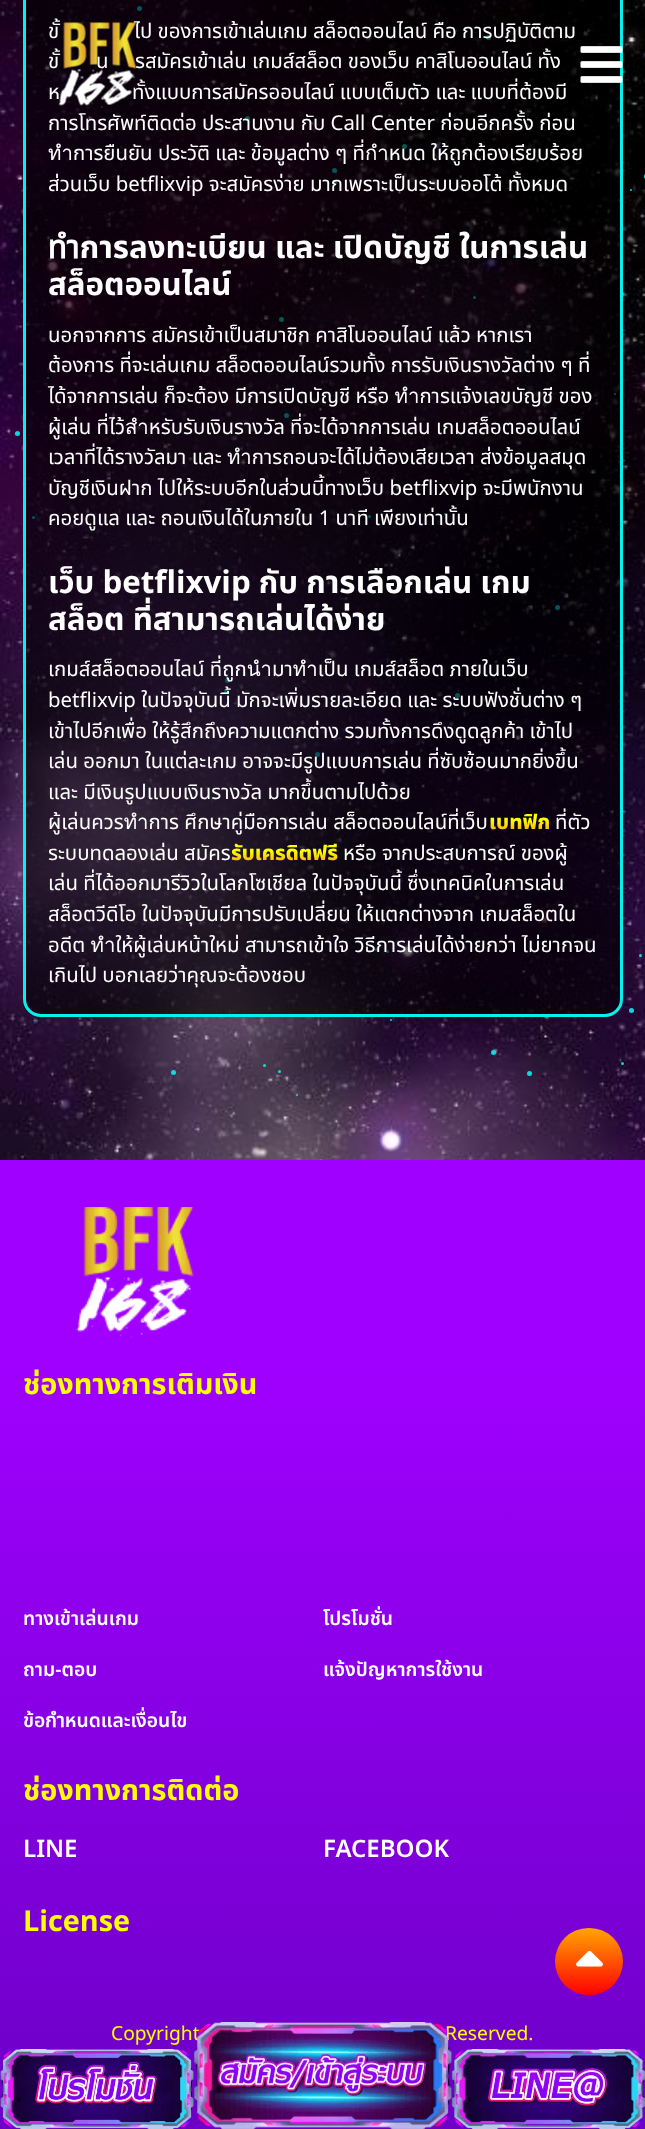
<?xml version="1.0" encoding="UTF-8"?>
<svg xmlns="http://www.w3.org/2000/svg" xmlns:xlink="http://www.w3.org/1999/xlink" width="645" height="2129">
  <defs>
    <linearGradient id="g1" gradientUnits="userSpaceOnUse" x1="520" y1="808" x2="520" y2="838"><stop offset="0" stop-color="#fbff00" /><stop offset="0.4" stop-color="#fbff00" /><stop offset="0.8" stop-color="#ffa914" /></linearGradient>
    <linearGradient id="g2" gradientUnits="userSpaceOnUse" x1="284" y1="839" x2="284" y2="869"><stop offset="0" stop-color="#fbff00" /><stop offset="0.4" stop-color="#fbff00" /><stop offset="0.8" stop-color="#ffa914" /></linearGradient>
    <linearGradient id="g3" gradientUnits="userSpaceOnUse" x1="322" y1="1160" x2="323" y2="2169"><stop offset="0.2" stop-color="#a000ff" /><stop offset="1" stop-color="#6900c3" /></linearGradient>
    <linearGradient id="g4" gradientUnits="userSpaceOnUse" x1="589" y1="1928" x2="589" y2="1995"><stop offset="0" stop-color="#ffa500" /><stop offset="1" stop-color="#ff0000" /></linearGradient>
  </defs>
  <rect width="100%" height="100%" fill="#ffffff" />
  <image x="0" y="0" width="645" height="1160" xlink:href="image1.png" />
  <circle cx="247.5" cy="118.5" r="2.5" fill="#06f0ec" fill-opacity="0.9" />
  <circle cx="17.5" cy="433.5" r="2.5" fill="#06f0ec" fill-opacity="0.9" />
  <circle cx="227.5" cy="680.5" r="2.5" fill="#0ddcde" />
  <circle cx="334.5" cy="170.5" r="2.5" fill="#06f0ec" fill-opacity="0.9" />
  <circle cx="317.5" cy="754.5" r="2.5" fill="#06f0ec" fill-opacity="0.9" />
  <circle cx="226.5" cy="691.5" r="2.5" fill="#06f0ec" fill-opacity="0.9" />
  <circle cx="557.5" cy="607.5" r="2.5" fill="#06f0ec" fill-opacity="0.9" />
  <circle cx="286.5" cy="415.5" r="2.5" fill="#06f0ec" fill-opacity="0.9" />
  <circle cx="631.5" cy="1010.5" r="2.5" fill="#06f0ec" fill-opacity="0.9" />
  <circle cx="457.5" cy="695.5" r="2.5" fill="#06f0ec" fill-opacity="0.9" />
  <circle cx="493.5" cy="1052.5" r="2.5" fill="#06f0ec" fill-opacity="0.9" />
  <circle cx="334.5" cy="182.5" r="2.5" fill="#06f0ec" fill-opacity="0.9" />
  <circle cx="139.5" cy="8.5" r="2.5" fill="#06f0ec" fill-opacity="0.9" />
  <rect x="644" y="174" width="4" height="5" rx="2.5" fill="#05d8d4" />
  <circle cx="404.5" cy="146.5" r="2.5" fill="#07d8d5" />
  <circle cx="529.5" cy="1073.5" r="2.5" fill="#0bdbdb" />
  <circle cx="173.5" cy="1072.5" r="2.5" fill="#06f0ec" fill-opacity="0.9" />
  <circle cx="281.5" cy="319.5" r="2.5" fill="#08d9d7" />
  <circle cx="488.5" cy="37.5" r="2.5" fill="#06f0ec" fill-opacity="0.9" />
  <circle cx="55" cy="372" r="1" fill="#0ad8da" />
  <circle cx="447" cy="570" r="1" fill="#07d8d7" />
  <circle cx="391" cy="1020" r="1" fill="#06f0ec" fill-opacity="0.9" />
  <circle cx="445" cy="514" r="1" fill="#07d8d7" />
  <circle cx="615" cy="394" r="1" fill="#06f0ec" fill-opacity="0.9" />
  <circle cx="486" cy="660" r="1" fill="#07d8d7" />
  <circle cx="48" cy="378" r="1" fill="#06f0ec" fill-opacity="0.9" />
  <circle cx="297" cy="1095" r="1" fill="#06f0ec" fill-opacity="0.9" />
  <circle cx="474" cy="699" r="1" fill="#06f0ec" fill-opacity="0.9" />
  <circle cx="631" cy="190" r="1" fill="#06d8d5" />
  <circle cx="510" cy="886" r="1" fill="#06f0ec" fill-opacity="0.9" />
  <circle cx="271" cy="894" r="1" fill="#06f0ec" fill-opacity="0.9" />
  <circle cx="376.5" cy="949.5" r="1.5" fill="#06f0ec" fill-opacity="0.9" />
  <circle cx="514.5" cy="256.5" r="1.5" fill="#06f0ec" fill-opacity="0.9" />
  <circle cx="369.5" cy="516.5" r="1.5" fill="#06f0ec" fill-opacity="0.9" />
  <circle cx="264.5" cy="1065.5" r="1.5" fill="#0ddedc" />
  <circle cx="640.5" cy="955.5" r="1.5" fill="#06f0ec" fill-opacity="0.9" />
  <circle cx="622.5" cy="1063.5" r="1.5" fill="#06f0ec" fill-opacity="0.9" />
  <circle cx="474.5" cy="297.5" r="1.5" fill="#06f0ec" fill-opacity="0.9" />
  <circle cx="279.5" cy="1071.5" r="1.5" fill="#06f0ec" fill-opacity="0.9" />
  <circle cx="85.5" cy="487.5" r="1.5" fill="#0ad9da" />
  <circle cx="387.5" cy="951.5" r="1.5" fill="#06f0ec" fill-opacity="0.9" />
  <circle cx="33.5" cy="517.5" r="1.5" fill="#06f0ec" fill-opacity="0.9" />
  <rect x="24.5" y="-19.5" width="597" height="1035" rx="16.5" fill="#000000" fill-opacity="0.6" stroke="#06f0ec" stroke-width="3" />
  <image x="580" y="46" width="43" height="37" xlink:href="image3.png" />
  <rect y="1160" width="645" height="969" fill="url(#g3)" />
  <image x="76" y="1207" width="118" height="131" xlink:href="image4.png" />
  <rect x="555" y="1928" width="68" height="67" rx="33.5" fill="url(#g4)" />
  <image x="576" y="1950" width="27" height="17" xlink:href="image5.png" />
  <image x="0" y="2049" width="194" height="80" xlink:href="image6.png" />
  <text x="48" y="38" style="font-family: Noto Sans Thai; font-size: 20.4px; fill: #ffffff">ขั้</text>
  <text x="134" y="38" style="font-family: Noto Sans Thai; font-size: 20.4px; fill: #ffffff">ไป ของการเข้าเล่นเกม สล็อตออนไลน์ คือ การปฏิบัติตาม</text>
  <text x="48" y="68" style="font-family: Noto Sans Thai; font-size: 20.4px; fill: #ffffff">ขั้</text>
  <text x="96" y="68" style="font-family: Noto Sans Thai; font-size: 20.4px; fill: #ffffff">น</text>
  <text x="135" y="68" style="font-family: Noto Sans Thai; font-size: 20.4px; fill: #ffffff">รสมัครเข้าเล่น เกมส์สล็อต ของเว็บ คาสิโนออนไลน์ ทั้ง</text>
  <text x="48" y="99" style="font-family: Noto Sans Thai; font-size: 20.4px; fill: #ffffff">ห</text>
  <text x="132" y="99" style="font-family: Noto Sans Thai; font-size: 20.4px; fill: #ffffff">ทั้งแบบการสมัครออนไลน์ แบบเต็มตัว และ แบบที่ต้องมี</text>
  <text x="48" y="130" style="font-family: Noto Sans Thai; font-size: 20.4px; fill: #ffffff">การโทรศัพท์ติดต่อ ประสานงาน กับ Call Center ก่อนอีกครั้ง ก่อน</text>
  <text x="48" y="160" style="font-family: Noto Sans Thai; font-size: 20.4px; fill: #ffffff">ทำการยืนยัน ประวัติ และ ข้อมูลต่าง ๆ ที่กำหนด ให้ถูกต้องเรียบร้อย</text>
  <text x="48" y="191" style="font-family: Noto Sans Thai; font-size: 20.4px; fill: #ffffff">ส่วนเว็บ betflixvip จะสมัครง่าย มากเพราะเป็นระบบออโต้ ทั้งหมด</text>
  <text x="48" y="258" style="font-family: Noto Sans Thai; font-size: 31.25px; font-weight: bold; fill: #ffffff">ทำการลงทะเบียน และ เปิดบัญชี ในการเล่น</text>
  <text x="48" y="295" style="font-family: Noto Sans Thai; font-size: 31.25px; font-weight: bold; fill: #ffffff">สล็อตออนไลน์</text>
  <text x="48" y="342" style="font-family: Noto Sans Thai; font-size: 20.4px; fill: #ffffff">นอกจากการ สมัครเข้าเป็นสมาชิก คาสิโนออนไลน์ แล้ว หากเรา</text>
  <text x="48" y="372" style="font-family: Noto Sans Thai; font-size: 20.4px; fill: #ffffff">ต้องการ ที่จะเล่นเกม สล็อตออนไลน์รวมทั้ง การรับเงินรางวัลต่าง ๆ ที่</text>
  <text x="48" y="403" style="font-family: Noto Sans Thai; font-size: 20.4px; fill: #ffffff">ได้จากการเล่น ก็จะต้อง มีการเปิดบัญชี หรือ ทำการแจ้งเลขบัญชี ของ</text>
  <text x="48" y="434" style="font-family: Noto Sans Thai; font-size: 20.4px; fill: #ffffff">ผู้เล่น ที่ไว้สำหรับรับเงินรางวัล ที่จะได้จากการเล่น เกมสล็อตออนไลน์</text>
  <text x="48" y="464" style="font-family: Noto Sans Thai; font-size: 20.4px; fill: #ffffff">เวลาที่ได้รางวัลมา และ ทำการถอนจะได้ไม่ต้องเสียเวลา ส่งข้อมูลสมุด</text>
  <text x="48" y="495" style="font-family: Noto Sans Thai; font-size: 20.4px; fill: #ffffff">บัญชีเงินฝาก ไปให้ระบบอีกในส่วนนี้ทางเว็บ betflixvip จะมีพนักงาน</text>
  <text x="48" y="525" style="font-family: Noto Sans Thai; font-size: 20.4px; fill: #ffffff">คอยดูแล และ ถอนเงินได้ในภายใน 1 นาที เพียงเท่านั้น</text>
  <text x="48" y="593" style="font-family: Noto Sans Thai; font-size: 31.25px; font-weight: bold; fill: #ffffff">เว็บ betflixvip กับ การเลือกเล่น เกม</text>
  <text x="48" y="630" style="font-family: Noto Sans Thai; font-size: 31.25px; font-weight: bold; fill: #ffffff">สล็อต ที่สามารถเล่นได้ง่าย</text>
  <text x="48" y="676" style="font-family: Noto Sans Thai; font-size: 20.4px; fill: #ffffff">เกมส์สล็อตออนไลน์ ที่ถูกนำมาทำเป็น เกมส์สล็อต ภายในเว็บ</text>
  <text x="48" y="707" style="font-family: Noto Sans Thai; font-size: 20.4px; fill: #ffffff">betflixvip ในปัจจุบันนี้ มักจะเพิ่มรายละเอียด และ ระบบฟังชั่นต่าง ๆ</text>
  <text x="48" y="738" style="font-family: Noto Sans Thai; font-size: 20.4px; fill: #ffffff">เข้าไปอีกเพื่อ ให้รู้สึกถึงความแตกต่าง รวมทั้งการดึงดูดลูกค้า เข้าไป</text>
  <text x="48" y="768" style="font-family: Noto Sans Thai; font-size: 20.4px; fill: #ffffff">เล่น ออกมา ในแต่ละเกม อาจจะมีรูปแบบการเล่น ที่ซับซ้อนมากยิ่งขึ้น</text>
  <text x="48" y="799" style="font-family: Noto Sans Thai; font-size: 20.4px; fill: #ffffff">และ มีเงินรูปแบบเงินรางวัล มากขึ้นตามไปด้วย</text>
  <text x="48" y="829" style="font-family: Noto Sans Thai; font-size: 20.4px; fill: #ffffff">ผู้เล่นควรทำการ ศึกษาคู่มือการเล่น สล็อตออนไลน์ที่เว็บ</text>
  <text x="489" y="829" style="font-family: Noto Sans Thai; font-size: 20.4px; font-weight: 800; fill: url(#g1)">เบทฟิก</text>
  <text x="555" y="829" style="font-family: Noto Sans Thai; font-size: 20.4px; fill: #ffffff">ที่ตัว</text>
  <text x="48" y="860" style="font-family: Noto Sans Thai; font-size: 20.4px; fill: #ffffff">ระบบทดลองเล่น สมัคร</text>
  <text x="231" y="860" style="font-family: Noto Sans Thai; font-size: 20.4px; font-weight: 800; fill: url(#g2)">รับเครดิตฟรี</text>
  <text x="343" y="860" style="font-family: Noto Sans Thai; font-size: 20.4px; fill: #ffffff">หรือ จากประสบการณ์ ของผู้</text>
  <text x="48" y="890" style="font-family: Noto Sans Thai; font-size: 20.4px; fill: #ffffff">เล่น ที่ได้ออกมารีวิวในโลกโซเชียล ในปัจจุบันนี้ ซึ่งเทคนิคในการเล่น</text>
  <text x="48" y="921" style="font-family: Noto Sans Thai; font-size: 20.4px; fill: #ffffff">สล็อตวีดีโอ ในปัจจุบันมีการปรับเปลี่ยน ให้แตกต่างจาก เกมสล็อตใน</text>
  <text x="48" y="952" style="font-family: Noto Sans Thai; font-size: 20.4px; fill: #ffffff">อดีต ทำให้ผู้เล่นหน้าใหม่ สามารถเข้าใจ วิธีการเล่นได้ง่ายกว่า ไม่ยากจน</text>
  <text x="48" y="982" style="font-family: Noto Sans Thai; font-size: 20.4px; fill: #ffffff">เกินไป บอกเลยว่าคุณจะต้องชอบ</text>
  <image x="58" y="22" width="79" height="88" xlink:href="image2.png" />
  <text x="23" y="1394" style="font-family: Noto Sans Thai; font-size: 28.75px; font-weight: bold; fill: #ffff00">ช่องทางการเติมเงิน</text>
  <text x="23" y="1625" style="font-family: Noto Sans Thai; font-size: 19.25px; font-weight: 600; fill: #ffffff">ทางเข้าเล่นเกม</text>
  <text x="323" y="1625" style="font-family: Noto Sans Thai; font-size: 19.25px; font-weight: 600; fill: #ffffff">โปรโมชั่น</text>
  <text x="23" y="1676" style="font-family: Noto Sans Thai; font-size: 19.25px; font-weight: 600; fill: #ffffff">ถาม-ตอบ</text>
  <text x="323" y="1676" style="font-family: Noto Sans Thai; font-size: 19.25px; font-weight: 600; fill: #ffffff">แจ้งปัญหาการใช้งาน</text>
  <text x="23" y="1727" style="font-family: Noto Sans Thai; font-size: 19.25px; font-weight: 600; fill: #ffffff">ข้อกำหนดและเงื่อนไข</text>
  <text x="23" y="1800" style="font-family: Noto Sans Thai; font-size: 28.75px; font-weight: bold; fill: #ffff00">ช่องทางการติดต่อ</text>
  <text x="23" y="1857" style="font-family: Noto Sans Thai; font-size: 24px; font-weight: 600; fill: #ffffff">LINE</text>
  <text x="323" y="1857" style="font-family: Noto Sans Thai; font-size: 24px; font-weight: 600; fill: #ffffff">FACEBOOK</text>
  <text x="23" y="1931" style="font-family: Noto Sans Thai; font-size: 28.75px; font-weight: bold; fill: #ffff00">License</text>
  <text x="111" y="2040" style="font-family: Noto Sans Thai; font-size: 19.25px; fill: #ffff00">Copyright</text>
  <text x="445" y="2040" style="font-family: Noto Sans Thai; font-size: 19.25px; fill: #ffff00">Reserved.</text>
  <image x="194" y="2022" width="258" height="107" xlink:href="image7.png" />
  <image x="451" y="2049" width="194" height="80" xlink:href="image8.png" />
</svg>
